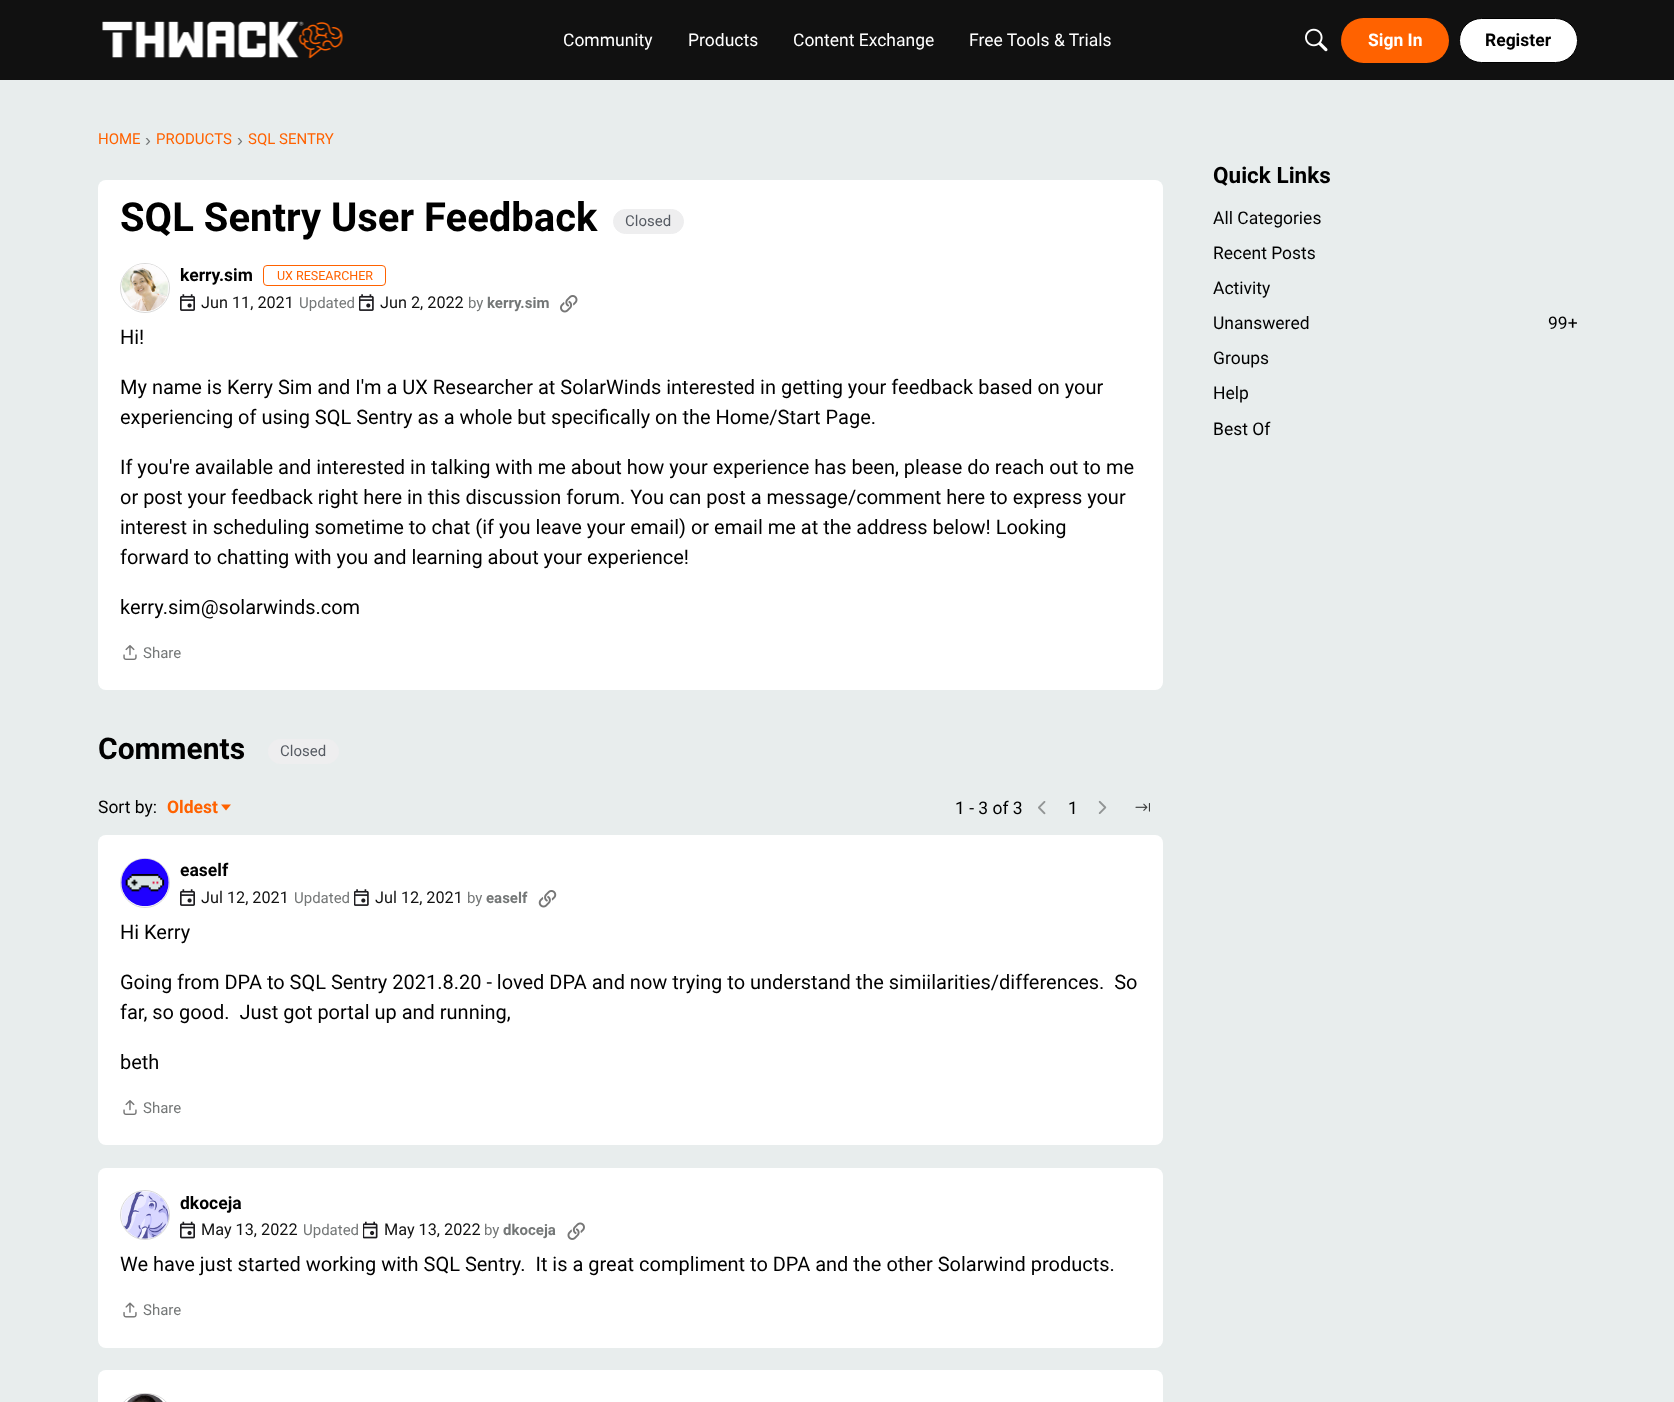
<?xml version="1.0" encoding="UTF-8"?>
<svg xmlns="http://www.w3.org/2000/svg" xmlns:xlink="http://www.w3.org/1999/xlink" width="1674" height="1402">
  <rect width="100%" height="100%" fill="#e8eded" />
  <rect width="1674" height="80" fill="#111111" />
  <image x="102" y="21" width="241" height="38" xlink:href="image1.png" />
  <image x="1305" y="28" width="23" height="24" xlink:href="image2.png" />
  <rect x="1341" y="18" width="108" height="45" rx="22.5" fill="#ff6200" />
  <rect x="1459.5" y="18.5" width="118" height="44" rx="22" fill="#ffffff" stroke="#000000" />
  <rect x="98" y="180" width="1065" height="510" rx="8" fill="#ffffff" />
  <rect x="613.5" y="209.5" width="70" height="24" rx="12" fill="#eeeeef" stroke="#eeeeef" />
  <circle cx="145" cy="288" r="24.5" fill="none" stroke="#d9d9d9" />
  <image x="121" y="264" width="48" height="47" xlink:href="image3.png" />
  <rect x="263.5" y="265.5" width="122" height="20" rx="3.5" fill="none" stroke="#ff6200" />
  <image x="180" y="294" width="15" height="17" xlink:href="image4.png" />
  <image x="359" y="294" width="15" height="17" xlink:href="image5.png" />
  <image x="560" y="295" width="18" height="18" xlink:href="image6.png" />
  <image x="123" y="645" width="14" height="15" xlink:href="image7.png" />
  <rect x="268" y="739" width="71" height="25" rx="12.5" fill="#eeeeef" />
  <path d="M 221 804.5 h 10 l -5 6 z" fill="#ff6200" />
  <image x="1038" y="801" width="8" height="14" xlink:href="image8.png" />
  <image x="1098" y="800" width="9" height="14" xlink:href="image9.png" />
  <image x="1135" y="803" width="15" height="9" xlink:href="image10.png" />
  <rect x="98" y="835" width="1065" height="310" rx="8" fill="#ffffff" />
  <circle cx="145" cy="883" r="24.5" fill="none" stroke="#d9d9d9" />
  <image x="121" y="858" width="48" height="49" xlink:href="image11.png" />
  <image x="180" y="889" width="15" height="17" xlink:href="image4.png" />
  <image x="354" y="889" width="15" height="17" xlink:href="image5.png" />
  <image x="538" y="890" width="19" height="18" xlink:href="image12.png" />
  <image x="123" y="1100" width="14" height="15" xlink:href="image7.png" />
  <rect x="98" y="1168" width="1065" height="180" rx="8" fill="#ffffff" />
  <circle cx="145" cy="1215" r="24.5" fill="none" stroke="#d9d9d9" />
  <image x="121" y="1191" width="48" height="48" xlink:href="image13.png" />
  <image x="180" y="1221" width="15" height="18" xlink:href="image14.png" />
  <image x="363" y="1221" width="15" height="18" xlink:href="image15.png" />
  <image x="567" y="1222" width="18" height="18" xlink:href="image16.png" />
  <image x="123" y="1302" width="14" height="16" xlink:href="image17.png" />
  <rect x="98" y="1370" width="1065" height="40" rx="8" fill="#ffffff" />
  <rect x="120.5" y="1393.5" width="49" height="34" rx="24.5" fill="none" stroke="#d9d9d9" />
  <image x="127" y="1393" width="36" height="9" xlink:href="image18.png" />
  <text x="563" y="46" style="font-family: Roboto; font-size: 17.5px; fill: #ffffff">Community</text>
  <text x="688" y="46" style="font-family: Roboto; font-size: 17.5px; fill: #ffffff">Products</text>
  <text x="793" y="46" style="font-family: Roboto; font-size: 17.5px; fill: #ffffff">Content Exchange</text>
  <text x="969" y="46" style="font-family: Roboto; font-size: 17.5px; fill: #ffffff">Free Tools &amp; Trials</text>
  <text x="1368" y="46" style="font-family: Roboto; font-size: 17.5px; font-weight: bold; fill: #ffffff">Sign In</text>
  <text x="1485" y="46" style="font-family: Roboto; font-size: 17.5px; font-weight: bold; fill: #000000">Register</text>
  <text x="98" y="144" style="font-family: Roboto; font-size: 15px; fill: #ff6200">HOME</text>
  <text x="145" y="146" style="font-family: Liberation Sans; font-size: 17.5px; fill: #747777">›</text>
  <text x="156" y="144" style="font-family: Roboto; font-size: 15px; fill: #ff6200">PRODUCTS</text>
  <text x="237" y="146" style="font-family: Liberation Sans; font-size: 17.5px; fill: #747777">›</text>
  <text x="248" y="144" style="font-family: Roboto; font-size: 15px; fill: #ff6200">SQL SENTRY</text>
  <text x="120" y="231" style="font-family: Roboto; font-size: 40px; font-weight: bold; fill: #000000">SQL Sentry User Feedback</text>
  <text x="625" y="226" style="font-family: Roboto; font-size: 15px; fill: #555a62">Closed</text>
  <text x="180" y="281" style="font-family: Roboto; font-size: 17.5px; font-weight: bold; fill: #000000">kerry.sim</text>
  <text x="277" y="280" style="font-family: Roboto; font-size: 12.5px; fill: #ff6200">UX RESEARCHER</text>
  <text x="201" y="308" style="font-family: Roboto; font-size: 16.25px; fill: #111111">Jun 11, 2021</text>
  <text x="299" y="308" style="font-family: Roboto; font-size: 15px; fill: #747777">Updated</text>
  <text x="380" y="308" style="font-family: Roboto; font-size: 16.25px; fill: #111111">Jun 2, 2022</text>
  <text x="468" y="308" style="font-family: Roboto; font-size: 15px; fill: #747777">by</text>
  <text x="487" y="308" style="font-family: Roboto; font-size: 15px; font-weight: bold; fill: #747777">kerry.sim</text>
  <text x="120" y="344" style="font-family: Roboto; font-size: 20px; fill: #000000">Hi!</text>
  <text x="120" y="394" style="font-family: Roboto; font-size: 20px; fill: #000000">My name is Kerry Sim and I'm a UX Researcher at SolarWinds interested in getting your feedback based on your</text>
  <text x="120" y="424" style="font-family: Roboto; font-size: 20px; fill: #000000">experiencing of using SQL Sentry as a whole but specifically on the Home/Start Page.</text>
  <text x="120" y="474" style="font-family: Roboto; font-size: 20px; fill: #000000">If you're available and interested in talking with me about how your experience has been, please do reach out to me</text>
  <text x="120" y="504" style="font-family: Roboto; font-size: 20px; fill: #000000">or post your feedback right here in this discussion forum. You can post a message/comment here to express your</text>
  <text x="120" y="534" style="font-family: Roboto; font-size: 20px; fill: #000000">interest in scheduling sometime to chat (if you leave your email) or email me at the address below! Looking</text>
  <text x="120" y="564" style="font-family: Roboto; font-size: 20px; fill: #000000">forward to chatting with you and learning about your experience!</text>
  <text x="120" y="614" style="font-family: Roboto; font-size: 20px; fill: #000000">kerry.sim@solarwinds.com</text>
  <text x="143" y="658" style="font-family: Roboto; font-size: 15px; fill: #747777">Share</text>
  <text x="98" y="759" style="font-family: Roboto; font-size: 30px; font-weight: bold; fill: #000000">Comments</text>
  <text x="280" y="756" style="font-family: Roboto; font-size: 15px; fill: #555a62">Closed</text>
  <text x="98" y="813" style="font-family: Roboto; font-size: 17.5px; fill: #000000">Sort by:</text>
  <text x="167" y="813" style="font-family: Roboto; font-size: 17.5px; font-weight: bold; fill: #ff6200">Oldest</text>
  <text x="955" y="814" style="font-family: Roboto; font-size: 17.5px; fill: #000000">1 - 3 of 3</text>
  <text x="1068" y="814" style="font-family: Roboto; font-size: 17.5px; fill: #000000">1</text>
  <text x="180" y="876" style="font-family: Roboto; font-size: 17.5px; font-weight: bold; fill: #000000">eaself</text>
  <text x="201" y="903" style="font-family: Roboto; font-size: 16.25px; fill: #111111">Jul 12, 2021</text>
  <text x="294" y="903" style="font-family: Roboto; font-size: 15px; fill: #747777">Updated</text>
  <text x="375" y="903" style="font-family: Roboto; font-size: 16.25px; fill: #111111">Jul 12, 2021</text>
  <text x="467" y="903" style="font-family: Roboto; font-size: 15px; fill: #747777">by</text>
  <text x="486" y="903" style="font-family: Roboto; font-size: 15px; font-weight: bold; fill: #747777">eaself</text>
  <text x="120" y="939" style="font-family: Roboto; font-size: 20px; fill: #000000">Hi Kerry</text>
  <text x="120" y="989" style="font-family: Roboto; font-size: 20px; fill: #000000" xml:space="preserve">Going from DPA to SQL Sentry 2021.8.20 - loved DPA and now trying to understand the simiilarities/differences.  So</text>
  <text x="120" y="1019" style="font-family: Roboto; font-size: 20px; fill: #000000" xml:space="preserve">far, so good.  Just got portal up and running,</text>
  <text x="120" y="1069" style="font-family: Roboto; font-size: 20px; fill: #000000">beth</text>
  <text x="143" y="1113" style="font-family: Roboto; font-size: 15px; fill: #747777">Share</text>
  <text x="180" y="1209" style="font-family: Roboto; font-size: 17.5px; font-weight: bold; fill: #000000">dkoceja</text>
  <text x="201" y="1235" style="font-family: Roboto; font-size: 16.25px; fill: #111111">May 13, 2022</text>
  <text x="303" y="1235" style="font-family: Roboto; font-size: 15px; fill: #747777">Updated</text>
  <text x="384" y="1235" style="font-family: Roboto; font-size: 16.25px; fill: #111111">May 13, 2022</text>
  <text x="484" y="1235" style="font-family: Roboto; font-size: 15px; fill: #747777">by</text>
  <text x="503" y="1235" style="font-family: Roboto; font-size: 15px; font-weight: bold; fill: #747777">dkoceja</text>
  <text x="120" y="1271" style="font-family: Roboto; font-size: 20px; fill: #000000" xml:space="preserve">We have just started working with SQL Sentry.  It is a great compliment to DPA and the other Solarwind products.</text>
  <text x="143" y="1315" style="font-family: Roboto; font-size: 15px; fill: #747777">Share</text>
  <text x="1213" y="183" style="font-family: Roboto; font-size: 22.5px; font-weight: bold; fill: #000000">Quick Links</text>
  <text x="1213" y="224" style="font-family: Roboto; font-size: 17.5px; fill: #000000">All Categories</text>
  <text x="1213" y="259" style="font-family: Roboto; font-size: 17.5px; fill: #000000">Recent Posts</text>
  <text x="1213" y="294" style="font-family: Roboto; font-size: 17.5px; fill: #000000">Activity</text>
  <text x="1213" y="329" style="font-family: Roboto; font-size: 17.5px; fill: #000000">Unanswered</text>
  <text x="1548" y="329" style="font-family: Roboto; font-size: 17.5px; fill: #000000">99+</text>
  <text x="1213" y="364" style="font-family: Roboto; font-size: 17.5px; fill: #000000">Groups</text>
  <text x="1213" y="399" style="font-family: Roboto; font-size: 17.5px; fill: #000000">Help</text>
  <text x="1213" y="435" style="font-family: Roboto; font-size: 17.5px; fill: #000000">Best Of</text>
</svg>
